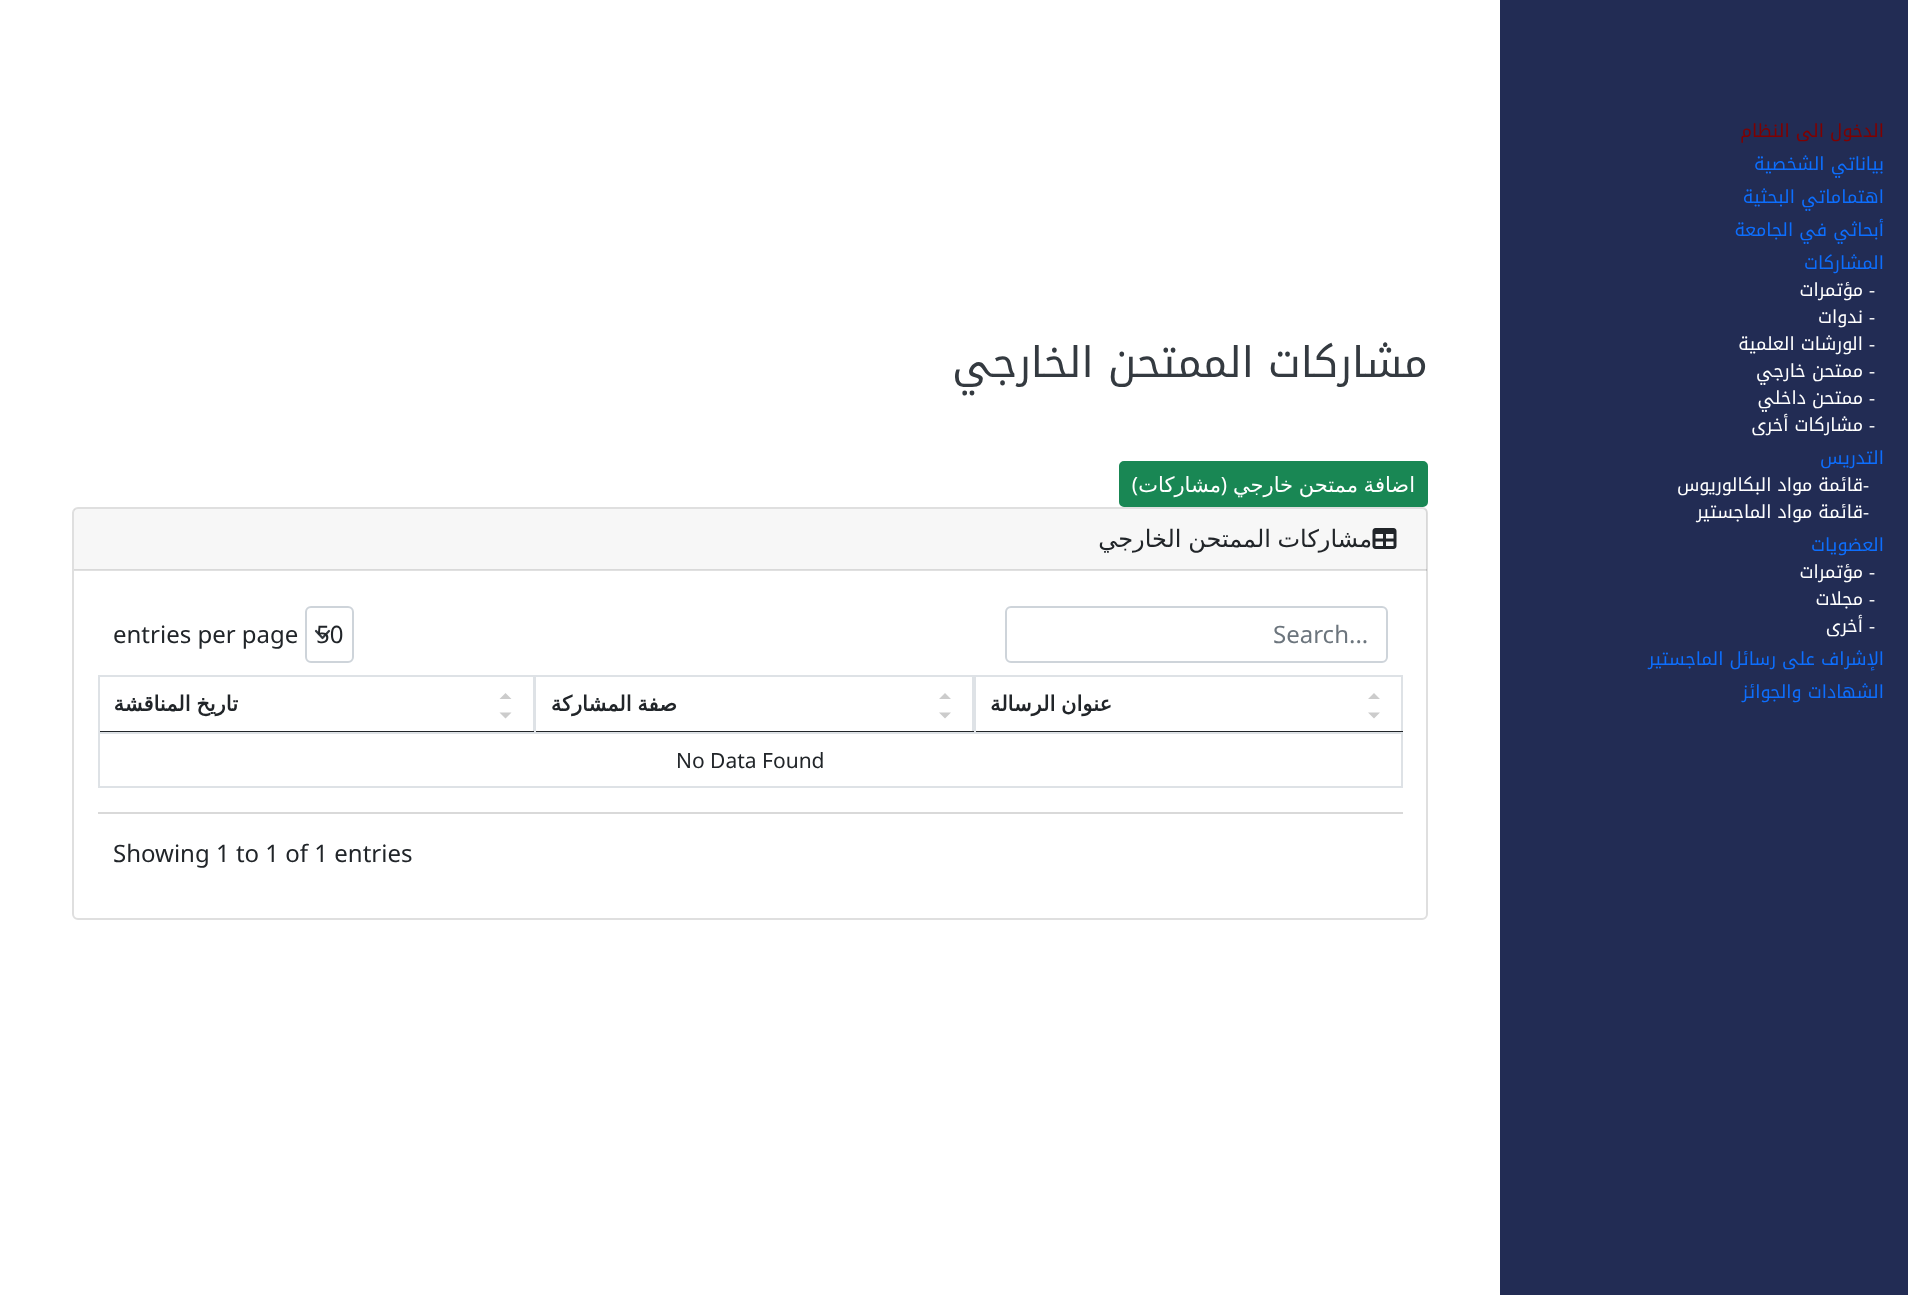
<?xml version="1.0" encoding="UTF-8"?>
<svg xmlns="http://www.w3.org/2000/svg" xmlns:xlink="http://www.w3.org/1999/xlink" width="1908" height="1295">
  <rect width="100%" height="100%" fill="#ffffff" />
  <rect x="1500" width="408" height="1295" fill="#222c54" />
  <rect x="1120" y="462" width="307" height="44" rx="4" fill="#198754" stroke="#198754" stroke-width="2" />
  <rect x="73" y="508" width="1354" height="411" rx="5" fill="none" stroke="#dfdfdf" stroke-width="2" />
  <rect x="74" y="509" width="1353" height="61" fill="#000000" fill-opacity="0.03" />
  <rect x="74" y="569" width="1353" height="2" fill="#000000" fill-opacity="0.12" />
  <rect x="1006" y="607" width="381" height="55" rx="5" fill="none" stroke="#ced4da" stroke-width="2" />
  <path d="M 316 631 l 6.5 7 l 6.5 -7" fill="none" stroke="#343a40" stroke-width="2.2" stroke-linecap="round" stroke-linejoin="round" />
  <rect x="306" y="607" width="47" height="55" rx="5" fill="none" stroke="#ced4da" stroke-width="2" />
  <rect x="98" y="812" width="1305" height="2" fill="#d9d9d9" />
  <rect x="98" y="675" width="1305" height="2" fill="#dee2e6" />
  <rect x="1401" y="675" width="2" height="57" fill="#dee2e6" />
  <rect x="974" y="731" width="429" height="1" fill="#212529" />
  <rect x="972" y="675" width="4" height="57" fill="#dee2e6" />
  <path d="M 1368 712.5 h 12 l -6 6 z m 12 -13.5 h -12 l 6 -6 z" fill="#cccccc" />
  <rect x="534" y="731" width="440" height="1" fill="#212529" />
  <rect x="533" y="675" width="3" height="57" fill="#dee2e6" />
  <path d="M 939 712.5 h 12 l -6 6 z m 12 -13.5 h -12 l 6 -6 z" fill="#cccccc" />
  <rect x="98" y="731" width="436" height="1" fill="#212529" />
  <rect x="98" y="675" width="2" height="57" fill="#dee2e6" />
  <path d="M 499.5 712.5 h 12 l -6 6 z m 12 -13.5 h -12 l 6 -6 z" fill="#cccccc" />
  <rect x="98" y="732" width="1305" height="2" fill="#dee2e6" />
  <rect x="98" y="786" width="1305" height="2" fill="#dee2e6" />
  <rect x="1401" y="732" width="2" height="56" fill="#dee2e6" />
  <rect x="98" y="732" width="2" height="56" fill="#dee2e6" />
  <text x="1884" y="137" style="font-family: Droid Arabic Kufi; font-size: 18px; direction: rtl; fill: #800000">الدخول الى النظام</text>
  <text x="1884" y="170" style="font-family: Droid Arabic Kufi; font-size: 18px; direction: rtl; fill: #0d6efd">بياناتي الشخصية</text>
  <text x="1884" y="203" style="font-family: Droid Arabic Kufi; font-size: 18px; direction: rtl; fill: #0d6efd">اهتماماتي البحثية</text>
  <text x="1884" y="236" style="font-family: Droid Arabic Kufi; font-size: 18px; direction: rtl; fill: #0d6efd">أبحاثي في الجامعة</text>
  <text x="1884" y="269" style="font-family: Droid Arabic Kufi; font-size: 18px; direction: rtl; fill: #0d6efd">المشاركات</text>
  <text x="1875" y="296" style="font-family: Liberation Serif; font-size: 18px; direction: rtl; fill: #ffffff">-</text>
  <text x="1863" y="296" style="font-family: Droid Arabic Kufi; font-size: 18px; direction: rtl; fill: #ffffff">مؤتمرات</text>
  <text x="1875" y="323" style="font-family: Liberation Serif; font-size: 18px; direction: rtl; fill: #ffffff">-</text>
  <text x="1863" y="323" style="font-family: Droid Arabic Kufi; font-size: 18px; direction: rtl; fill: #ffffff">ندوات</text>
  <text x="1875" y="350" style="font-family: Liberation Serif; font-size: 18px; direction: rtl; fill: #ffffff">-</text>
  <text x="1863" y="350" style="font-family: Droid Arabic Kufi; font-size: 18px; direction: rtl; fill: #ffffff">الورشات العلمية</text>
  <text x="1875" y="377" style="font-family: Liberation Serif; font-size: 18px; direction: rtl; fill: #ffffff">-</text>
  <text x="1863" y="377" style="font-family: Droid Arabic Kufi; font-size: 18px; direction: rtl; fill: #ffffff">ممتحن خارجي</text>
  <text x="1875" y="404" style="font-family: Liberation Serif; font-size: 18px; direction: rtl; fill: #ffffff">-</text>
  <text x="1863" y="404" style="font-family: Droid Arabic Kufi; font-size: 18px; direction: rtl; fill: #ffffff">ممتحن داخلي</text>
  <text x="1875" y="431" style="font-family: Liberation Serif; font-size: 18px; direction: rtl; fill: #ffffff">-</text>
  <text x="1863" y="431" style="font-family: Droid Arabic Kufi; font-size: 18px; direction: rtl; fill: #ffffff">مشاركات أخرى</text>
  <text x="1884" y="464" style="font-family: Droid Arabic Kufi; font-size: 18px; direction: rtl; fill: #0d6efd">التدريس</text>
  <text x="1863" y="491" style="font-family: Liberation Serif; font-size: 18px; fill: #ffffff">-</text>
  <text x="1863" y="491" style="font-family: Droid Arabic Kufi; font-size: 18px; direction: rtl; fill: #ffffff">قائمة مواد البكالوريوس</text>
  <text x="1863" y="518" style="font-family: Liberation Serif; font-size: 18px; fill: #ffffff">-</text>
  <text x="1863" y="518" style="font-family: Droid Arabic Kufi; font-size: 18px; direction: rtl; fill: #ffffff">قائمة مواد الماجستير</text>
  <text x="1884" y="551" style="font-family: Droid Arabic Kufi; font-size: 18px; direction: rtl; fill: #0d6efd">العضويات</text>
  <text x="1875" y="578" style="font-family: Liberation Serif; font-size: 18px; direction: rtl; fill: #ffffff">-</text>
  <text x="1863" y="578" style="font-family: Droid Arabic Kufi; font-size: 18px; direction: rtl; fill: #ffffff">مؤتمرات</text>
  <text x="1875" y="605" style="font-family: Liberation Serif; font-size: 18px; direction: rtl; fill: #ffffff">-</text>
  <text x="1863" y="605" style="font-family: Droid Arabic Kufi; font-size: 18px; direction: rtl; fill: #ffffff">مجلات</text>
  <text x="1875" y="632" style="font-family: Liberation Serif; font-size: 18px; direction: rtl; fill: #ffffff">-</text>
  <text x="1863" y="632" style="font-family: Droid Arabic Kufi; font-size: 18px; direction: rtl; fill: #ffffff">أخرى</text>
  <text x="1884" y="665" style="font-family: Droid Arabic Kufi; font-size: 18px; direction: rtl; fill: #0d6efd">الإشراف على رسائل الماجستير</text>
  <text x="1884" y="698" style="font-family: Droid Arabic Kufi; font-size: 18px; direction: rtl; fill: #0d6efd">الشهادات والجوائز</text>
  <text x="1428" y="377" style="font-family: Droid Arabic Kufi; font-size: 42px; direction: rtl; fill: #343a40">مشاركات الممتحن الخارجي</text>
  <text x="1415" y="492" word-spacing="-1" style="font-family: DejaVu Sans; font-size: 21px; direction: rtl; fill: #ffffff">اضافة ممتحن خارجي</text>
  <text x="1227" y="492" style="font-family: Noto Sans; font-size: 21px; direction: rtl; fill: #ffffff">(</text>
  <text x="1221" y="492" style="font-family: DejaVu Sans; font-size: 21px; direction: rtl; fill: #ffffff">مشاركات</text>
  <text x="1138" y="492" style="font-family: Noto Sans; font-size: 21px; direction: rtl; fill: #ffffff">)</text>
  <text x="1372" y="547" word-spacing="-1" style="font-family: DejaVu Sans; font-size: 24px; direction: rtl; fill: #212529">مشاركات الممتحن الخارجي</text>
  <image x="1372" y="528" width="25" height="21" xlink:href="image1.png" />
  <text x="1273" y="643" style="font-family: Noto Sans; font-size: 24px; fill: #6c757d">Search...</text>
  <text x="316" y="643" style="font-family: Noto Sans; font-size: 24px; fill: #212529">50</text>
  <text x="113" y="643" style="font-family: Noto Sans; font-size: 24px; fill: #212529">entries per page</text>
  <text x="1112" y="711" word-spacing="-1" style="font-family: DejaVu Sans; font-size: 21px; font-weight: bold; direction: rtl; fill: #212529">عنوان الرسالة</text>
  <text x="677" y="711" word-spacing="-1" style="font-family: DejaVu Sans; font-size: 21px; font-weight: bold; direction: rtl; fill: #212529">صفة المشاركة</text>
  <text x="238" y="711" word-spacing="-1" style="font-family: DejaVu Sans; font-size: 21px; font-weight: bold; direction: rtl; fill: #212529">تاريخ المناقشة</text>
  <text x="676" y="768" style="font-family: Noto Sans; font-size: 21px; fill: #212529">No Data Found</text>
  <text x="113" y="862" style="font-family: Noto Sans; font-size: 24px; fill: #212529">Showing 1 to 1 of 1 entries</text>
</svg>
